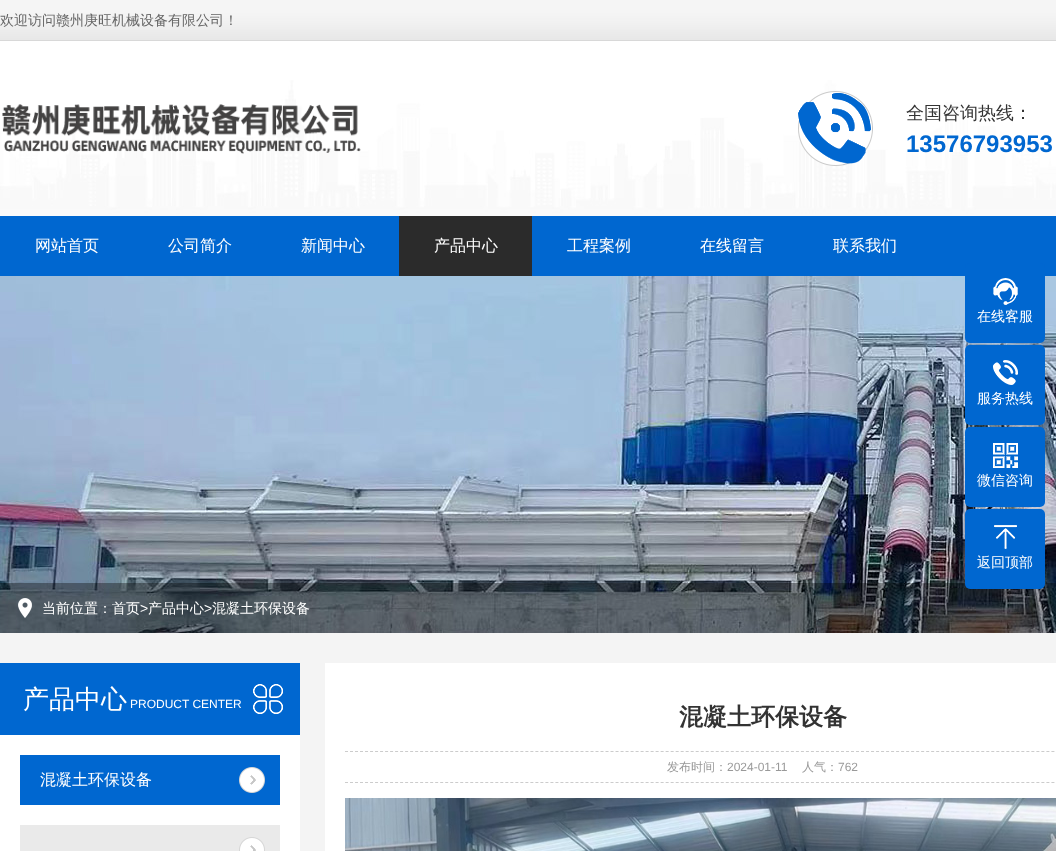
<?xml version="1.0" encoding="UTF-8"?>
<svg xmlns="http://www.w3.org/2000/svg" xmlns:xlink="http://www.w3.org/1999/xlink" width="1056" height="851">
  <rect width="100%" height="100%" fill="#ffffff" />
  <image x="0" y="0" width="1056" height="40" xlink:href="image1.png" />
  <rect y="40" width="1056" height="1" fill="#d8d8d8" />
  <image x="0" y="80" width="1056" height="136" xlink:href="image2.png" />
  <image x="2" y="104" width="359" height="50" xlink:href="image3.png" />
  <image x="798" y="91" width="75" height="75" xlink:href="image4.png" />
  <rect y="216" width="1056" height="60" fill="#0067d0" />
  <rect x="399" y="216" width="133" height="60" fill="#2b2b2b" />
  <image x="0" y="276" width="1056" height="357" xlink:href="image5.png" />
  <rect x="965" y="263" width="80" height="80" rx="5" fill="#0067d0" />
  <image x="993" y="278" width="25" height="27" xlink:href="image6.png" />
  <rect x="965" y="345" width="80" height="80" rx="5" fill="#0067d0" />
  <image x="993" y="360" width="25" height="25" xlink:href="image7.png" />
  <rect x="965" y="427" width="80" height="80" rx="5" fill="#0067d0" />
  <image x="993" y="443" width="25" height="25" xlink:href="image8.png" />
  <rect y="583" width="1056" height="50" fill="#000000" fill-opacity="0.35" />
  <rect x="965" y="509" width="80" height="80" rx="5" fill="#0067d0" />
  <image x="994" y="525" width="23" height="24" xlink:href="image9.png" />
  <image x="18" y="598" width="14" height="20" xlink:href="image10.png" />
  <rect y="633" width="1056" height="218" fill="#f4f4f4" />
  <rect y="663" width="300" height="72" fill="#0067d0" />
  <image x="253" y="684" width="30" height="30" xlink:href="image11.png" />
  <rect y="735" width="300" height="116" fill="#ffffff" />
  <rect x="20" y="755" width="260" height="50" fill="#0067d0" />
  <image x="239" y="767" width="26" height="26" xlink:href="image12.png" />
  <rect x="20" y="825" width="260" height="26" fill="#eaeaea" />
  <image x="239" y="837" width="26" height="14" xlink:href="image13.png" />
  <rect x="325" y="663" width="731" height="188" fill="#ffffff" />
  <path d="M 345 751.5 h 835" fill="none" stroke="#cccccc" stroke-dasharray="3 2.01" />
  <path d="M 345 782.5 h 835" fill="none" stroke="#cccccc" stroke-dasharray="3 2.01" />
  <image x="345" y="798" width="711" height="53" xlink:href="image14.png" />
  <text x="0" y="25" style="font-family: WenQuanYi Zen Hei; font-size: 14px; font-weight: 500; fill: #666666">欢迎访问赣州庚旺机械设备有限公司！</text>
  <text x="906" y="119" style="font-family: WenQuanYi Zen Hei; font-size: 18px; font-weight: 500; fill: #333333">全国咨询热线：</text>
  <text x="906" y="152" style="font-family: Liberation Sans; font-size: 24px; font-weight: bold; fill: #0067d0">13576793953</text>
  <text x="35" y="251" style="font-family: WenQuanYi Zen Hei; font-size: 16px; font-weight: 500; fill: #ffffff">网站首页</text>
  <text x="168" y="251" style="font-family: WenQuanYi Zen Hei; font-size: 16px; font-weight: 500; fill: #ffffff">公司简介</text>
  <text x="301" y="251" style="font-family: WenQuanYi Zen Hei; font-size: 16px; font-weight: 500; fill: #ffffff">新闻中心</text>
  <text x="434" y="251" style="font-family: WenQuanYi Zen Hei; font-size: 16px; font-weight: 500; fill: #ffffff">产品中心</text>
  <text x="567" y="251" style="font-family: WenQuanYi Zen Hei; font-size: 16px; font-weight: 500; fill: #ffffff">工程案例</text>
  <text x="700" y="251" style="font-family: WenQuanYi Zen Hei; font-size: 16px; font-weight: 500; fill: #ffffff">在线留言</text>
  <text x="833" y="251" style="font-family: WenQuanYi Zen Hei; font-size: 16px; font-weight: 500; fill: #ffffff">联系我们</text>
  <text x="977" y="321" style="font-family: WenQuanYi Zen Hei; font-size: 14px; font-weight: 500; fill: #ffffff">在线客服</text>
  <text x="977" y="403" style="font-family: WenQuanYi Zen Hei; font-size: 14px; font-weight: 500; fill: #ffffff">服务热线</text>
  <text x="977" y="485" style="font-family: WenQuanYi Zen Hei; font-size: 14px; font-weight: 500; fill: #ffffff">微信咨询</text>
  <text x="977" y="567" style="font-family: WenQuanYi Zen Hei; font-size: 14px; font-weight: 500; fill: #ffffff">返回顶部</text>
  <text x="42" y="613" style="font-family: WenQuanYi Zen Hei; font-size: 14px; font-weight: 500; fill: #ffffff">当前位置：首页</text>
  <text x="140" y="613" style="font-family: Liberation Sans; font-size: 14px; fill: #ffffff">&gt;</text>
  <text x="148" y="613" style="font-family: WenQuanYi Zen Hei; font-size: 14px; font-weight: 500; fill: #ffffff">产品中心</text>
  <text x="204" y="613" style="font-family: Liberation Sans; font-size: 14px; fill: #ffffff">&gt;</text>
  <text x="212" y="613" style="font-family: WenQuanYi Zen Hei; font-size: 14px; font-weight: 500; fill: #ffffff">混凝土环保设备</text>
  <text x="23" y="708" style="font-family: WenQuanYi Zen Hei; font-size: 26px; font-weight: 500; fill: #ffffff">产品中心</text>
  <text x="130" y="708" style="font-family: Liberation Sans; font-size: 12px; fill: #ffffff">PRODUCT CENTER</text>
  <text x="40" y="785" style="font-family: WenQuanYi Zen Hei; font-size: 16px; font-weight: 500; fill: #ffffff">混凝土环保设备</text>
  <text x="679" y="725" style="font-family: WenQuanYi Zen Hei; font-size: 24px; font-weight: bold; fill: #333333">混凝土环保设备</text>
  <text x="667" y="771" style="font-family: WenQuanYi Zen Hei; font-size: 12px; font-weight: 500; fill: #999999">发布时间：</text>
  <text x="727" y="771" style="font-family: Liberation Sans; font-size: 12px; fill: #999999">2024-01-11</text>
  <text x="802" y="771" style="font-family: WenQuanYi Zen Hei; font-size: 12px; font-weight: 500; fill: #999999">人气：</text>
  <text x="838" y="771" style="font-family: Liberation Sans; font-size: 12px; fill: #999999">762</text>
</svg>
